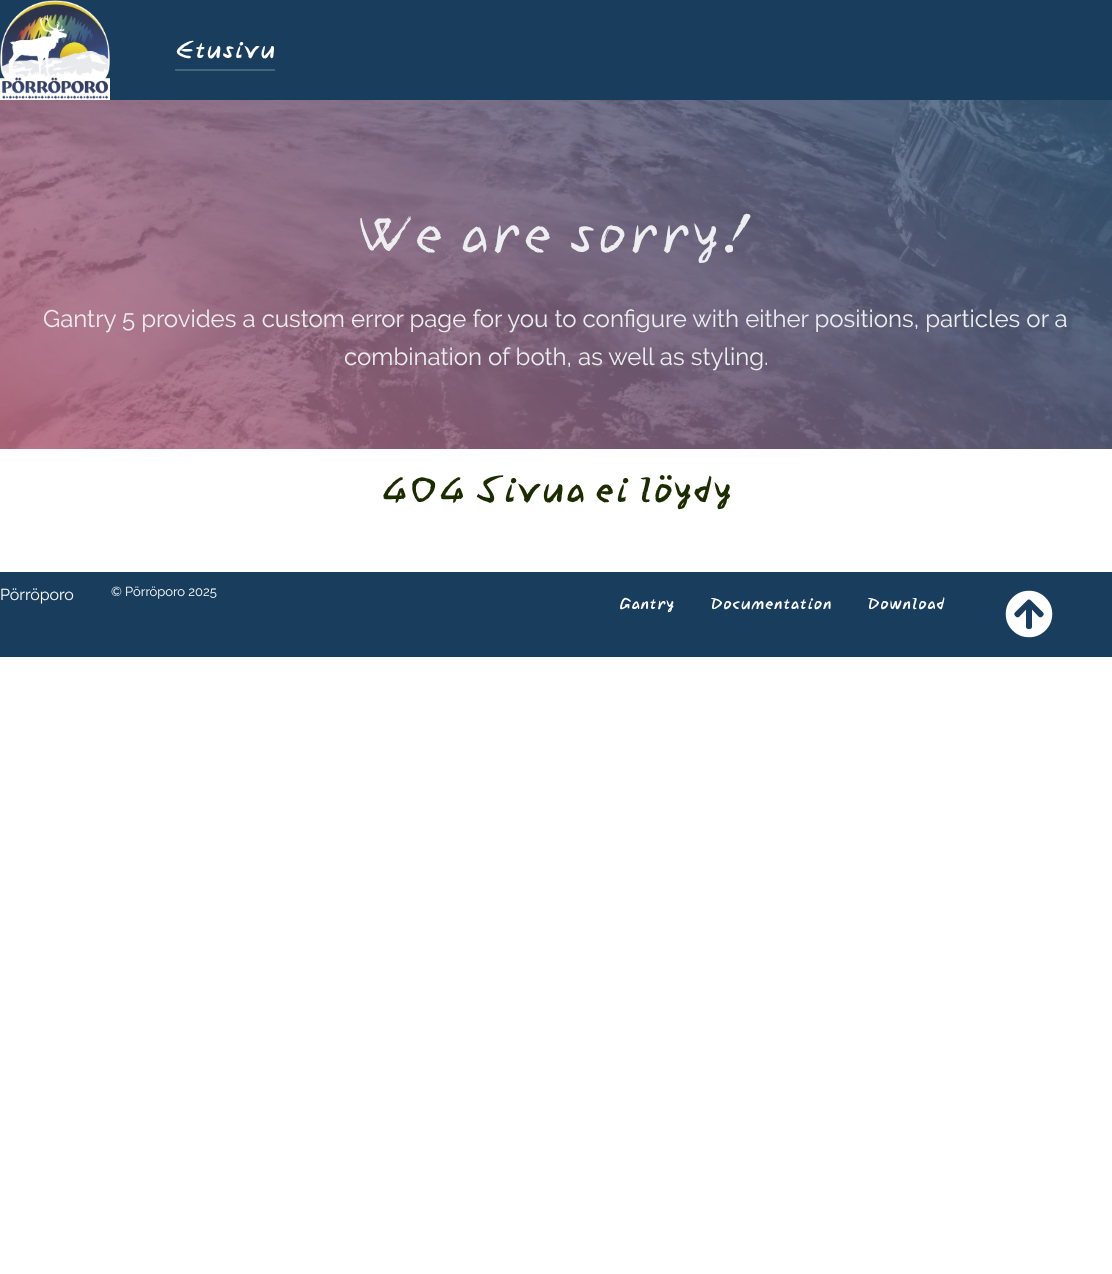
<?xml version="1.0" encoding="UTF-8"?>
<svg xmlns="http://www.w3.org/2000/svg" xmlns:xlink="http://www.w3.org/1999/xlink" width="1112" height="1274">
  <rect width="100%" height="100%" fill="#ffffff" />
  <rect width="1112" height="100" fill="#193d5c" />
  <image x="0" y="0" width="110" height="100" xlink:href="image1.png" />
  <rect x="175" y="69" width="100" height="2" fill="#47647d" />
  <image x="0" y="100" width="1112" height="349" xlink:href="image2.png" />
  <rect y="572" width="1112" height="85" fill="#193d5c" />
  <image x="1005" y="590" width="48" height="48" xlink:href="image3.png" />
  <text x="175" y="58" style="font-family: Yuji Boku; font-size: 24px; font-weight: bold; fill: #ffffff">Etusivu</text>
  <text x="357" y="252" style="font-family: Yuji Boku; font-size: 56px; fill: #eceeef">We are sorry!</text>
  <text x="43" y="327" style="font-family: Raleway; font-size: 24px; fill: #eceeef">Gantry 5 provides a custom error page for you to configure with either positions, particles or a</text>
  <text x="344" y="365" style="font-family: Raleway; font-size: 24px; fill: #eceeef">combination of both, as well as styling.</text>
  <text x="380" y="502" style="font-family: Yuji Boku; font-size: 36px; font-weight: bold; fill: #1b2c00">404 Sivua ei löydy</text>
  <text x="0" y="600" style="font-family: Raleway; font-size: 16px; fill: #ffffff">Pörröporo</text>
  <text x="111" y="596" style="font-family: Raleway; font-size: 13px; fill: #ffffff">© Pörröporo 2025</text>
  <text x="619" y="609" style="font-family: Yuji Boku; font-size: 16px; font-weight: bold; fill: #ffffff">Gantry</text>
  <text x="710" y="609" style="font-family: Yuji Boku; font-size: 16px; font-weight: bold; fill: #ffffff">Documentation</text>
  <text x="867" y="609" style="font-family: Yuji Boku; font-size: 16px; font-weight: bold; fill: #ffffff">Download</text>
</svg>
